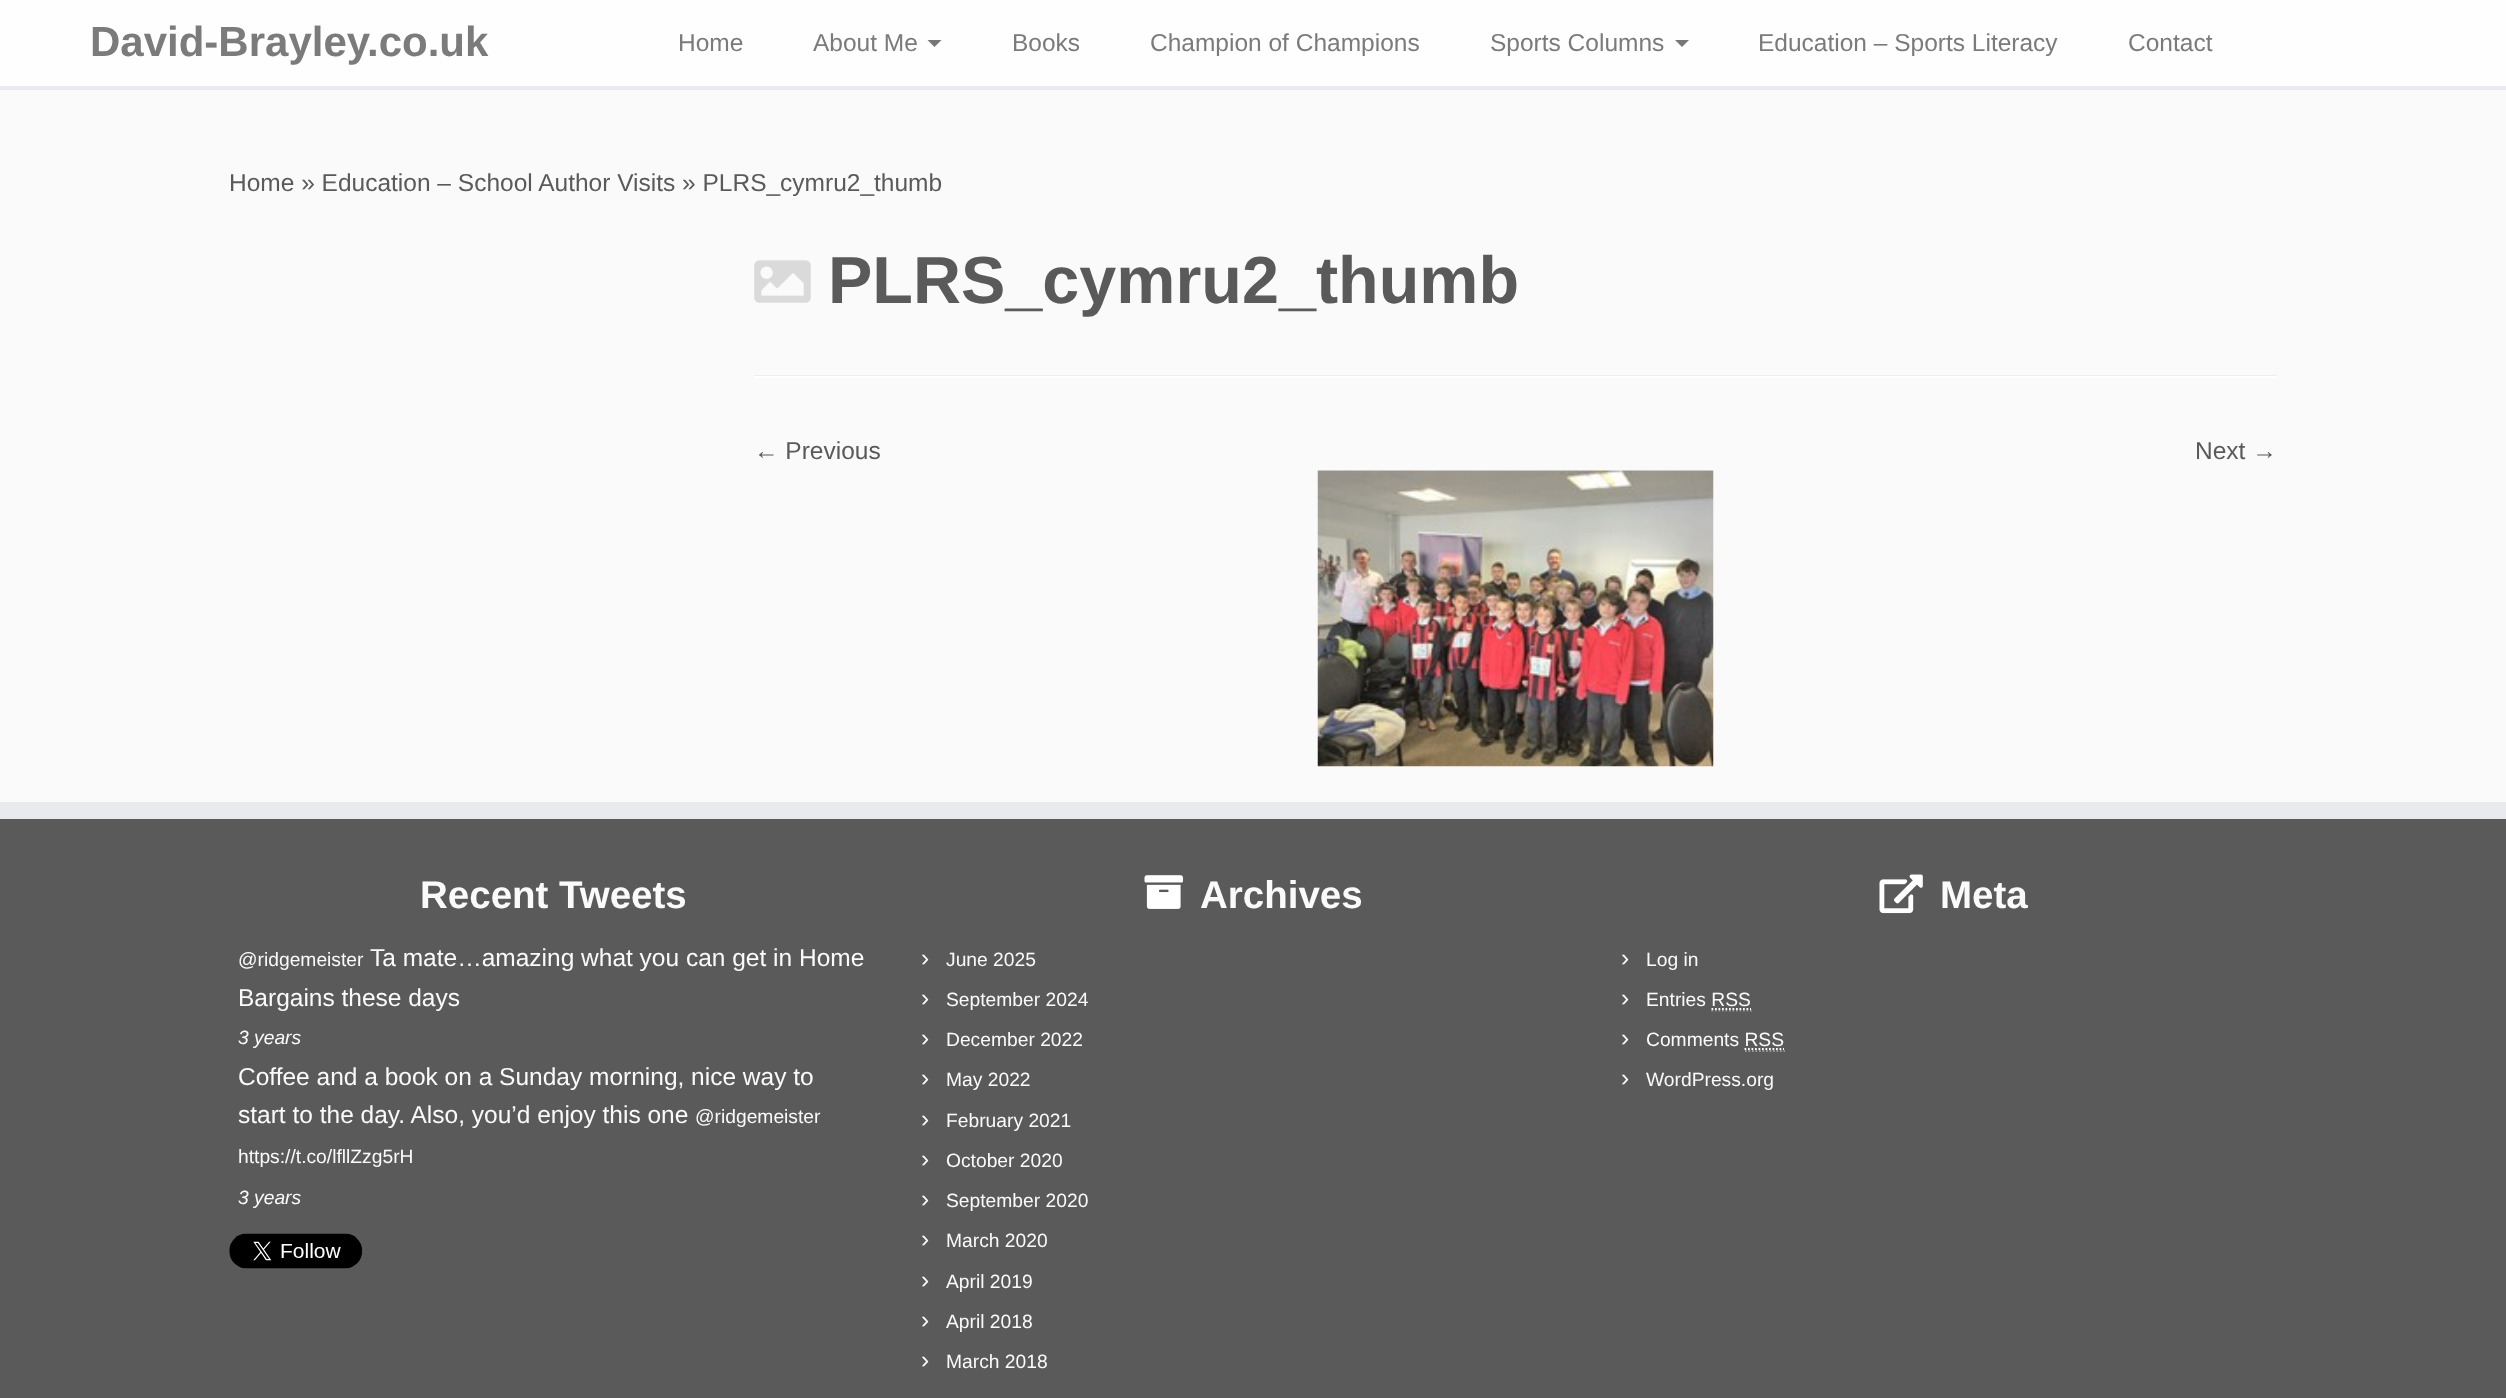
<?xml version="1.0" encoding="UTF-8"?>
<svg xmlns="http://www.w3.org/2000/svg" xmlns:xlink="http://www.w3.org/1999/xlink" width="2506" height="1398">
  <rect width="100%" height="100%" fill="#fafafa" />
  <rect width="2506" height="86" fill="#fefefe" />
  <rect y="86" width="2506" height="4" fill="#e9eaee" />
  <path d="M 927.5 40 h 14 l -7 7 z" fill="#777777" />
  <path d="M 1675 40 h 14 l -7 7 z" fill="#777777" />
  <image x="754" y="260" width="57" height="43" xlink:href="image1.png" />
  <rect x="754" y="375" width="1523" height="1" fill="#eeeeee" />
  <rect x="754" y="376" width="1523" height="2" fill="#ffffff" />
  <image x="1317" y="470" width="397" height="297" xlink:href="image2.png" />
  <rect y="819" width="2506" height="579" fill="#5a5a5a" />
  <rect y="802" width="2506" height="17" fill="#e9eaee" />
  <image x="229" y="1233" width="134" height="36" xlink:href="image3.png" />
  <image x="1144" y="875" width="39" height="34" xlink:href="image4.png" />
  <image x="1879" y="874" width="44" height="40" xlink:href="image5.png" />
  <path d="M 1711.5 1010.5 h 40.5" fill="none" stroke="#999999" stroke-width="1.8" stroke-dasharray="1.75 1.75" />
  <path d="M 1711.5 1009 h 39.5" fill="none" stroke="#fafafa" stroke-width="1.8" stroke-dasharray="1.75 1.75" />
  <path d="M 1745 1051 h 40" fill="none" stroke="#999999" stroke-width="1.8" stroke-dasharray="1.75 1.75" />
  <path d="M 1744.5 1049 h 39.5" fill="none" stroke="#fafafa" stroke-width="1.8" stroke-dasharray="1.75 1.75" />
  <text x="90" y="56" style="font-family: Liberation Sans; font-size: 42px; font-weight: bold; fill: #7b7b7b">David-Brayley.co.uk</text>
  <text x="678" y="51" style="font-family: Liberation Sans; font-size: 24.5px; fill: #7b7b7b">Home</text>
  <text x="813" y="51" style="font-family: Liberation Sans; font-size: 24.5px; fill: #7b7b7b">About Me</text>
  <text x="1012" y="51" style="font-family: Liberation Sans; font-size: 24.5px; fill: #7b7b7b">Books</text>
  <text x="1150" y="51" style="font-family: Liberation Sans; font-size: 24.5px; fill: #7b7b7b">Champion of Champions</text>
  <text x="1490" y="51" style="font-family: Liberation Sans; font-size: 24.5px; fill: #7b7b7b">Sports Columns</text>
  <text x="1758" y="51" style="font-family: Liberation Sans; font-size: 24.5px; fill: #7b7b7b">Education – Sports Literacy</text>
  <text x="2128" y="51" style="font-family: Liberation Sans; font-size: 24.5px; fill: #7b7b7b">Contact</text>
  <text x="229" y="191" style="font-family: Liberation Sans; font-size: 24.5px; fill: #5a5a5a">Home » Education – School Author Visits » PLRS_cymru2_thumb</text>
  <text x="828" y="303" style="font-family: Liberation Sans; font-size: 66.5px; font-weight: bold; fill: #5a5a5a">PLRS_cymru2_thumb</text>
  <text x="754" y="459" style="font-family: Liberation Sans; font-size: 24.5px; fill: #5a5a5a">← Previous</text>
  <text x="2195" y="459" style="font-family: Liberation Sans; font-size: 24.5px; fill: #5a5a5a">Next →</text>
  <text x="420" y="908" style="font-family: Liberation Sans; font-size: 38.5px; font-weight: bold; fill: #fafafa">Recent Tweets</text>
  <text x="238" y="966" style="font-family: Liberation Sans; font-size: 19.25px; fill: #fafafa">@ridgemeister</text>
  <text x="370" y="966" style="font-family: Liberation Sans; font-size: 24.5px; fill: #fafafa">Ta mate…amazing what you can get in Home</text>
  <text x="238" y="1006" style="font-family: Liberation Sans; font-size: 24.5px; fill: #fafafa">Bargains these days</text>
  <text x="238" y="1044" style="font-family: Liberation Sans; font-size: 19.25px; font-style: italic; fill: #fafafa">3 years</text>
  <text x="238" y="1085" style="font-family: Liberation Sans; font-size: 24.5px; fill: #fafafa">Coffee and a book on a Sunday morning, nice way to</text>
  <text x="238" y="1123" style="font-family: Liberation Sans; font-size: 24.5px; fill: #fafafa">start to the day. Also, you’d enjoy this one</text>
  <text x="695" y="1123" style="font-family: Liberation Sans; font-size: 19.25px; fill: #fafafa">@ridgemeister</text>
  <text x="238" y="1163" style="font-family: Liberation Sans; font-size: 19.25px; fill: #fafafa">https://t.co/lfllZzg5rH</text>
  <text x="238" y="1204" style="font-family: Liberation Sans; font-size: 19.25px; font-style: italic; fill: #fafafa">3 years</text>
  <text x="1200" y="908" style="font-family: Liberation Sans; font-size: 38.5px; font-weight: bold; fill: #fafafa">Archives</text>
  <text x="921" y="966" style="font-family: Liberation Sans; font-size: 24.5px; fill: #fafafa">›</text>
  <text x="946" y="966" style="font-family: Liberation Sans; font-size: 19.25px; fill: #fafafa">June 2025</text>
  <text x="921" y="1006" style="font-family: Liberation Sans; font-size: 24.5px; fill: #fafafa">›</text>
  <text x="946" y="1006" style="font-family: Liberation Sans; font-size: 19.25px; fill: #fafafa">September 2024</text>
  <text x="921" y="1046" style="font-family: Liberation Sans; font-size: 24.5px; fill: #fafafa">›</text>
  <text x="946" y="1046" style="font-family: Liberation Sans; font-size: 19.25px; fill: #fafafa">December 2022</text>
  <text x="921" y="1086" style="font-family: Liberation Sans; font-size: 24.5px; fill: #fafafa">›</text>
  <text x="946" y="1086" style="font-family: Liberation Sans; font-size: 19.25px; fill: #fafafa">May 2022</text>
  <text x="921" y="1127" style="font-family: Liberation Sans; font-size: 24.5px; fill: #fafafa">›</text>
  <text x="946" y="1127" style="font-family: Liberation Sans; font-size: 19.25px; fill: #fafafa">February 2021</text>
  <text x="921" y="1167" style="font-family: Liberation Sans; font-size: 24.5px; fill: #fafafa">›</text>
  <text x="946" y="1167" style="font-family: Liberation Sans; font-size: 19.25px; fill: #fafafa">October 2020</text>
  <text x="921" y="1207" style="font-family: Liberation Sans; font-size: 24.5px; fill: #fafafa">›</text>
  <text x="946" y="1207" style="font-family: Liberation Sans; font-size: 19.25px; fill: #fafafa">September 2020</text>
  <text x="921" y="1247" style="font-family: Liberation Sans; font-size: 24.5px; fill: #fafafa">›</text>
  <text x="946" y="1247" style="font-family: Liberation Sans; font-size: 19.25px; fill: #fafafa">March 2020</text>
  <text x="921" y="1288" style="font-family: Liberation Sans; font-size: 24.5px; fill: #fafafa">›</text>
  <text x="946" y="1288" style="font-family: Liberation Sans; font-size: 19.25px; fill: #fafafa">April 2019</text>
  <text x="921" y="1328" style="font-family: Liberation Sans; font-size: 24.5px; fill: #fafafa">›</text>
  <text x="946" y="1328" style="font-family: Liberation Sans; font-size: 19.25px; fill: #fafafa">April 2018</text>
  <text x="921" y="1368" style="font-family: Liberation Sans; font-size: 24.5px; fill: #fafafa">›</text>
  <text x="946" y="1368" style="font-family: Liberation Sans; font-size: 19.25px; fill: #fafafa">March 2018</text>
  <text x="1940" y="908" style="font-family: Liberation Sans; font-size: 38.5px; font-weight: bold; fill: #fafafa">Meta</text>
  <text x="1621" y="966" style="font-family: Liberation Sans; font-size: 24.5px; fill: #fafafa">›</text>
  <text x="1646" y="966" style="font-family: Liberation Sans; font-size: 19.25px; fill: #fafafa">Log in</text>
  <text x="1621" y="1006" style="font-family: Liberation Sans; font-size: 24.5px; fill: #fafafa">›</text>
  <text x="1646" y="1006" style="font-family: Liberation Sans; font-size: 19.25px; fill: #fafafa">Entries RSS</text>
  <text x="1621" y="1046" style="font-family: Liberation Sans; font-size: 24.5px; fill: #fafafa">›</text>
  <text x="1646" y="1046" style="font-family: Liberation Sans; font-size: 19.25px; fill: #fafafa">Comments RSS</text>
  <text x="1621" y="1086" style="font-family: Liberation Sans; font-size: 24.5px; fill: #fafafa">›</text>
  <text x="1646" y="1086" style="font-family: Liberation Sans; font-size: 19.25px; fill: #fafafa">WordPress.org</text>
</svg>
